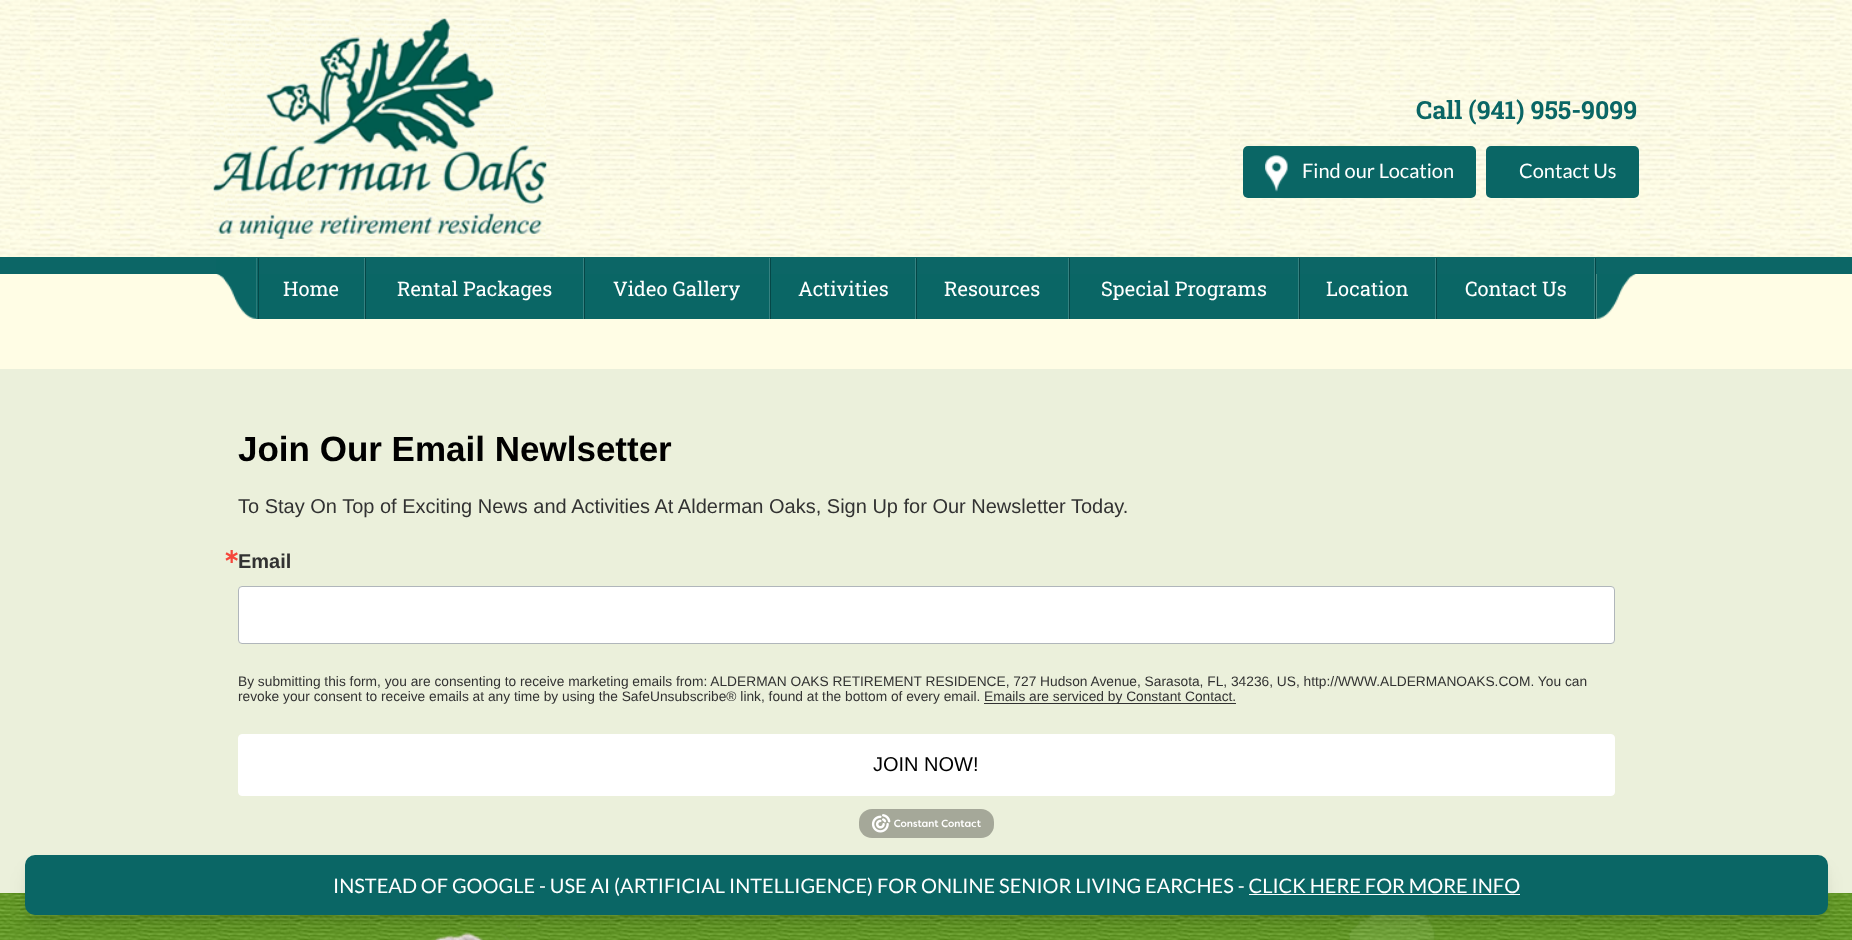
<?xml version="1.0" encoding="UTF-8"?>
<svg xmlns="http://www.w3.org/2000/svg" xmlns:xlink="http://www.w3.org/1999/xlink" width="1852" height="940">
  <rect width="100%" height="100%" fill="#fffde5" />
  <image x="0" y="0" width="1852" height="257" xlink:href="image1.png" />
  <image x="213" y="18" width="334" height="221" xlink:href="image2.png" />
  <rect x="1243" y="146" width="233" height="52" rx="5" fill="#0a6665" />
  <image x="1265" y="155" width="23" height="37" xlink:href="image3.png" />
  <rect x="1486" y="146" width="153" height="52" rx="5" fill="#0a6665" />
  <rect y="257" width="1852" height="17" fill="#0c6666" />
  <rect x="256" y="258" width="1" height="61" fill="#368281" />
  <image x="216" y="258" width="41" height="61" xlink:href="image4.png" />
  <rect x="257" y="274" width="107" height="45" fill="#0a6665" />
  <rect x="365" y="258" width="1" height="61" fill="#054747" />
  <rect x="364" y="258" width="1" height="61" fill="#368281" />
  <rect x="258" y="258" width="1" height="61" fill="#054747" />
  <rect x="366" y="274" width="217" height="45" fill="#0a6665" />
  <rect x="584" y="258" width="1" height="61" fill="#054747" />
  <rect x="583" y="258" width="1" height="61" fill="#368281" />
  <rect x="585" y="274" width="184" height="45" fill="#0a6665" />
  <rect x="770" y="258" width="1" height="61" fill="#054747" />
  <rect x="769" y="258" width="1" height="61" fill="#368281" />
  <rect x="771" y="274" width="297" height="45" fill="#0a6665" />
  <rect x="916" y="258" width="1" height="61" fill="#054747" />
  <rect x="915" y="258" width="1" height="61" fill="#368281" />
  <rect x="1069" y="258" width="1" height="61" fill="#054747" />
  <rect x="1068" y="258" width="1" height="61" fill="#368281" />
  <rect x="1070" y="274" width="228" height="45" fill="#0a6665" />
  <rect x="1299" y="258" width="1" height="61" fill="#054747" />
  <rect x="1298" y="258" width="1" height="61" fill="#368281" />
  <rect x="1300" y="274" width="294" height="45" fill="#0a6665" />
  <rect x="1436" y="258" width="1" height="61" fill="#054747" />
  <rect x="1435" y="258" width="1" height="61" fill="#368281" />
  <rect x="1595" y="258" width="1" height="61" fill="#054747" />
  <rect x="1594" y="258" width="1" height="61" fill="#368281" />
  <image x="1596" y="274" width="40" height="45" xlink:href="image5.png" />
  <rect y="369" width="1852" height="524" fill="#ebf0db" />
  <rect x="238.5" y="586.5" width="1376" height="57" rx="3.5" fill="#ffffff" stroke="#b0b6bb" />
  <rect x="984" y="703" width="252" height="1" fill="#323232" />
  <rect x="238.5" y="734.5" width="1376" height="61" rx="3.5" fill="#ffffff" stroke="#ffffff" />
  <rect x="859" y="809" width="135" height="29" rx="13" fill="#a5a899" />
  <image x="871" y="814" width="110" height="19" xlink:href="image6.png" />
  <image x="0" y="893" width="1852" height="47" xlink:href="image7.png" />
  <image x="1349" y="915" width="86" height="25" xlink:href="image9.png" />
  <rect x="28" y="863" width="1797" height="55" rx="8" fill="#000000" fill-opacity="0.05" filter="blur(4px)" />
  <rect x="29" y="871" width="1795" height="53" rx="6" fill="#000000" fill-opacity="0.1" filter="blur(9.5px)" />
  <image x="434" y="925" width="86" height="15" xlink:href="image8.png" />
  <rect x="25" y="855" width="1803" height="60" rx="10" fill="#0a6665" />
  <rect x="1249" y="894" width="271" height="1" fill="#ffffff" />
  <text x="1416" y="119" style="font-family: Roboto Slab; font-size: 25px; font-weight: bold; fill: #0a6665">Call (941) 955-9099</text>
  <text x="1302" y="178" style="font-family: Lato; font-size: 20px; fill: #ffffff">Find our Location</text>
  <text x="1519" y="178" style="font-family: Lato; font-size: 20px; fill: #ffffff">Contact Us</text>
  <text x="283" y="296" style="font-family: Roboto Slab; font-size: 20px; fill: #ffffff">Home</text>
  <text x="397" y="296" style="font-family: Roboto Slab; font-size: 20px; fill: #ffffff">Rental Packages</text>
  <text x="613" y="296" style="font-family: Roboto Slab; font-size: 20px; fill: #ffffff">Video Gallery</text>
  <text x="798" y="296" style="font-family: Roboto Slab; font-size: 20px; fill: #ffffff">Activities</text>
  <text x="944" y="296" style="font-family: Roboto Slab; font-size: 20px; fill: #ffffff">Resources</text>
  <text x="1101" y="296" style="font-family: Roboto Slab; font-size: 20px; fill: #ffffff">Special Programs</text>
  <text x="1326" y="296" style="font-family: Roboto Slab; font-size: 20px; fill: #ffffff">Location</text>
  <text x="1465" y="296" style="font-family: Roboto Slab; font-size: 20px; fill: #ffffff">Contact Us</text>
  <text x="238" y="461" style="font-family: Liberation Sans; font-size: 35px; font-weight: bold; fill: #000000">Join Our Email Newlsetter</text>
  <text x="238" y="513" style="font-family: Liberation Sans; font-size: 20px; fill: #323232">To Stay On Top of Exciting News and Activities At Alderman Oaks, Sign Up for Our Newsletter Today.</text>
  <text x="223" y="563" style="font-family: DejaVu Sans; font-size: 20px; font-weight: bold; fill: #f5463b">∗</text>
  <text x="238" y="568" style="font-family: Liberation Sans; font-size: 20px; font-weight: bold; fill: #323232">Email</text>
  <text x="238" y="686" style="font-family: Liberation Sans; font-size: 13.75px; fill: #323232">By submitting this form, you are consenting to receive marketing emails from: ALDERMAN OAKS RETIREMENT RESIDENCE, 727 Hudson Avenue, Sarasota, FL, 34236, US, http://WWW.ALDERMANOAKS.COM. You can</text>
  <text x="238" y="701" style="font-family: Liberation Sans; font-size: 13.75px; fill: #323232">revoke your consent to receive emails at any time by using the SafeUnsubscribe® link, found at the bottom of every email.</text>
  <text x="984" y="701" style="font-family: Liberation Sans; font-size: 13.75px; fill: #323232">Emails are serviced by Constant Contact.</text>
  <text x="873" y="771" style="font-family: Liberation Sans; font-size: 20px; fill: #000000">JOIN NOW!</text>
  <text x="333" y="893" style="font-family: Lato; font-size: 20px; fill: #ffffff">INSTEAD OF GOOGLE - USE AI (ARTIFICIAL INTELLIGENCE) FOR ONLINE SENIOR LIVING EARCHES - CLICK HERE FOR MORE INFO</text>
</svg>
